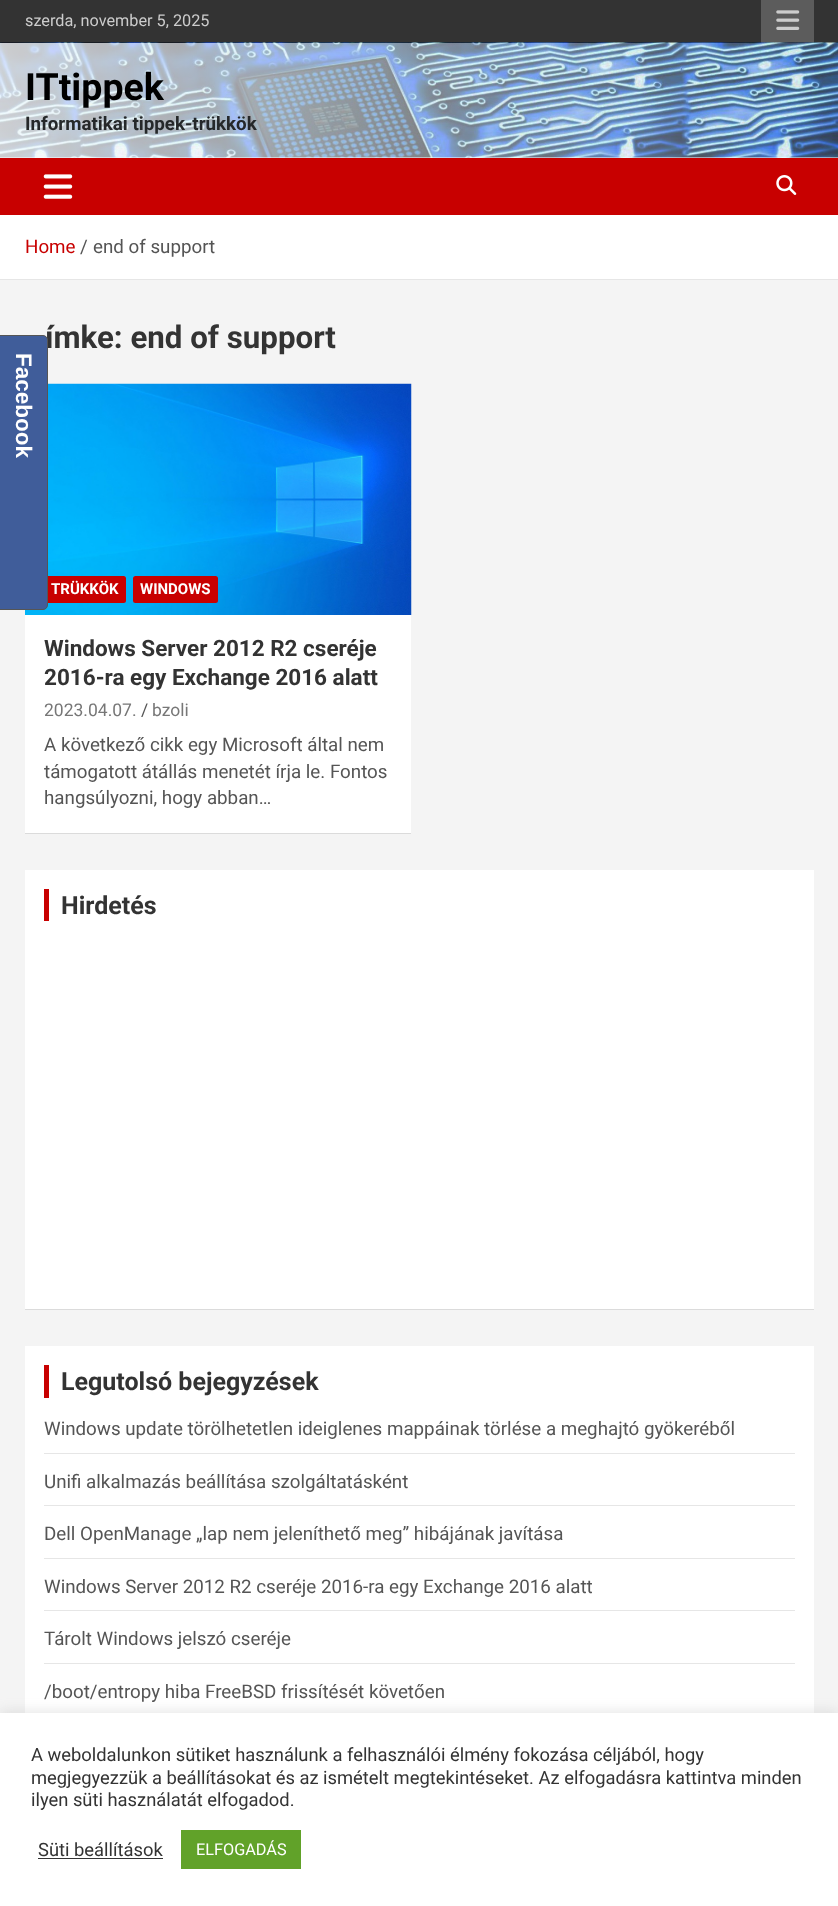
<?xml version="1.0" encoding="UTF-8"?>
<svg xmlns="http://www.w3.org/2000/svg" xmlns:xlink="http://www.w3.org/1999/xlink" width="838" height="1906">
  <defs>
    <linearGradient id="g1" gradientUnits="userSpaceOnUse" x1="0" y1="100" x2="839" y2="100"><stop offset="0" stop-color="#ffffff" stop-opacity="0.8" /><stop offset="1" stop-color="#ffffff" stop-opacity="0.2" /></linearGradient>
  </defs>
  <rect width="100%" height="100%" fill="#f4f4f4" />
  <rect width="838" height="43" fill="#333333" />
  <rect x="761" width="53" height="43" fill="#5c5c5c" />
  <image x="776" y="10" width="24" height="20" xlink:href="image1.png" />
  <rect y="157" width="838" height="1" fill="#ffffff" />
  <image x="0" y="42" width="838" height="116" xlink:href="image2.png" />
  <rect y="43" width="838" height="115" fill="url(#g1)" />
  <rect y="158" width="838" height="57" fill="#c80000" />
  <image x="43" y="174" width="30" height="25" xlink:href="image3.png" />
  <image x="776" y="175" width="21" height="20" xlink:href="image4.png" />
  <rect y="215" width="838" height="64" fill="#ffffff" />
  <rect y="279" width="838" height="1" fill="#e6e6e6" />
  <rect x="25" y="385" width="386" height="449" fill="#000000" fill-opacity="0.1" filter="blur(0.5px)" />
  <rect x="25" y="615" width="386" height="218" fill="#ffffff" />
  <image x="25" y="383" width="387" height="232" xlink:href="image5.png" />
  <rect x="44" y="576" width="82" height="27" rx="2.5" fill="#c80000" />
  <rect x="133" y="576" width="85" height="27" rx="2.5" fill="#c80000" />
  <rect x="25" y="871" width="789" height="439" fill="#000000" fill-opacity="0.1" filter="blur(0.5px)" />
  <rect x="25" y="870" width="789" height="439" fill="#ffffff" />
  <rect x="44" y="889" width="5" height="32" fill="#c80000" />
  <rect x="25" y="1346" width="789" height="367" fill="#ffffff" />
  <rect x="44" y="1365" width="5" height="33" fill="#c80000" />
  <rect x="44" y="1453" width="751" height="1" fill="#e6e6e6" />
  <rect x="44" y="1505" width="751" height="1" fill="#e6e6e6" />
  <rect x="44" y="1558" width="751" height="1" fill="#e6e6e6" />
  <rect x="44" y="1610" width="751" height="1" fill="#e6e6e6" />
  <rect x="44" y="1663" width="751" height="1" fill="#e6e6e6" />
  <rect y="1711" width="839" height="194" fill="#acabab" fill-opacity="0.3" filter="blur(6px)" />
  <rect y="1713" width="838" height="193" fill="#ffffff" />
  <rect x="38" y="1858" width="125" height="1" fill="#333333" />
  <rect x="181" y="1830" width="120" height="39" fill="#61a229" />
  <text x="25" y="26" style="font-family: Roboto; font-size: 16.25px; fill: #cccccc">szerda, november 5, 2025</text>
  <text x="25" y="100" style="font-family: Roboto; font-size: 37.5px; font-weight: bold; fill: #000000">ITtippek</text>
  <text x="25" y="130" style="font-family: Roboto; font-size: 18.75px; font-weight: bold; fill: #25282a">Informatikai tippek-trükkök</text>
  <text x="25" y="253" style="font-family: Roboto; font-size: 18.75px; fill: #c80000">Home</text>
  <text x="80" y="253" style="font-family: Roboto; font-size: 18.75px; fill: #555555">/</text>
  <text x="93" y="253" style="font-family: Roboto; font-size: 18.75px; fill: #555555">end of support</text>
  <text x="45" y="348" style="font-family: Roboto; font-size: 31.25px; font-weight: bold; fill: #333333">ímke: end of support</text>
  <path d="M -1.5 335.5 h 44.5 c 2.5 0 4.5 2 4.5 4.5 v 265 c 0 2.5 -2 4.5 -4.5 4.5 h -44.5 z" fill="#405d9a" stroke="#555555" />
  <text x="16" y="353" transform="rotate(90 16 353)" style="font-family: Liberation Sans; font-size: 22.5px; font-weight: bold; fill: #ffffff">Facebook</text>
  <text x="51" y="594" style="font-family: Roboto; font-size: 15px; font-weight: bold; fill: #ffffff">TRÜKKÖK</text>
  <text x="140" y="594" style="font-family: Roboto; font-size: 15px; font-weight: bold; fill: #ffffff">WINDOWS</text>
  <text x="44" y="656" style="font-family: Roboto; font-size: 22.5px; font-weight: bold; fill: #333333">Windows Server 2012 R2 cseréje</text>
  <text x="44" y="685" style="font-family: Roboto; font-size: 22.5px; font-weight: bold; fill: #333333">2016-ra egy Exchange 2016 alatt</text>
  <text x="44" y="716" style="font-family: Roboto; font-size: 17.5px; fill: #777777">2023.04.07.</text>
  <text x="141" y="716" style="font-family: Roboto; font-size: 17.5px; fill: #555555">/</text>
  <text x="152" y="716" style="font-family: Roboto; font-size: 17.5px; fill: #777777">bzoli</text>
  <text x="44" y="751" style="font-family: Roboto; font-size: 18.75px; fill: #555555">A következő cikk egy Microsoft által nem</text>
  <text x="44" y="778" style="font-family: Roboto; font-size: 18.75px; fill: #555555">támogatott átállás menetét írja le. Fontos</text>
  <text x="44" y="804" style="font-family: Roboto; font-size: 18.75px; fill: #555555">hangsúlyozni, hogy abban…</text>
  <text x="61" y="914" style="font-family: Roboto; font-size: 25px; font-weight: bold; fill: #333333">Hirdetés</text>
  <text x="61" y="1390" style="font-family: Roboto; font-size: 25px; font-weight: bold; fill: #333333">Legutolsó bejegyzések</text>
  <text x="44" y="1435" style="font-family: Roboto; font-size: 18.75px; fill: #555555">Windows update törölhetetlen ideiglenes mappáinak törlése a meghajtó gyökeréből</text>
  <text x="44" y="1488" style="font-family: Roboto; font-size: 18.75px; fill: #555555">Unifi alkalmazás beállítása szolgáltatásként</text>
  <text x="44" y="1540" style="font-family: Roboto; font-size: 18.75px; fill: #555555">Dell OpenManage „lap nem jeleníthető meg” hibájának javítása</text>
  <text x="44" y="1593" style="font-family: Roboto; font-size: 18.75px; fill: #555555">Windows Server 2012 R2 cseréje 2016-ra egy Exchange 2016 alatt</text>
  <text x="44" y="1645" style="font-family: Roboto; font-size: 18.75px; fill: #555555">Tárolt Windows jelszó cseréje</text>
  <text x="44" y="1698" style="font-family: Roboto; font-size: 18.75px; fill: #555555">/boot/entropy hiba FreeBSD frissítését követően</text>
  <text x="31" y="1761" style="font-family: Roboto; font-size: 18.35px; fill: #333333">A weboldalunkon sütiket használunk a felhasználói élmény fokozása céljából, hogy</text>
  <text x="31" y="1784" style="font-family: Roboto; font-size: 18.35px; fill: #333333">megjegyezzük a beállításokat és az ismételt megtekintéseket. Az elfogadásra kattintva minden</text>
  <text x="31" y="1806" style="font-family: Roboto; font-size: 18.35px; fill: #333333">ilyen süti használatát elfogadod.</text>
  <text x="38" y="1856" style="font-family: Roboto; font-size: 18.35px; fill: #333333">Süti beállítások</text>
  <text x="196" y="1855" style="font-family: Roboto; font-size: 16.25px; fill: #ffffff">ELFOGADÁS</text>
</svg>
